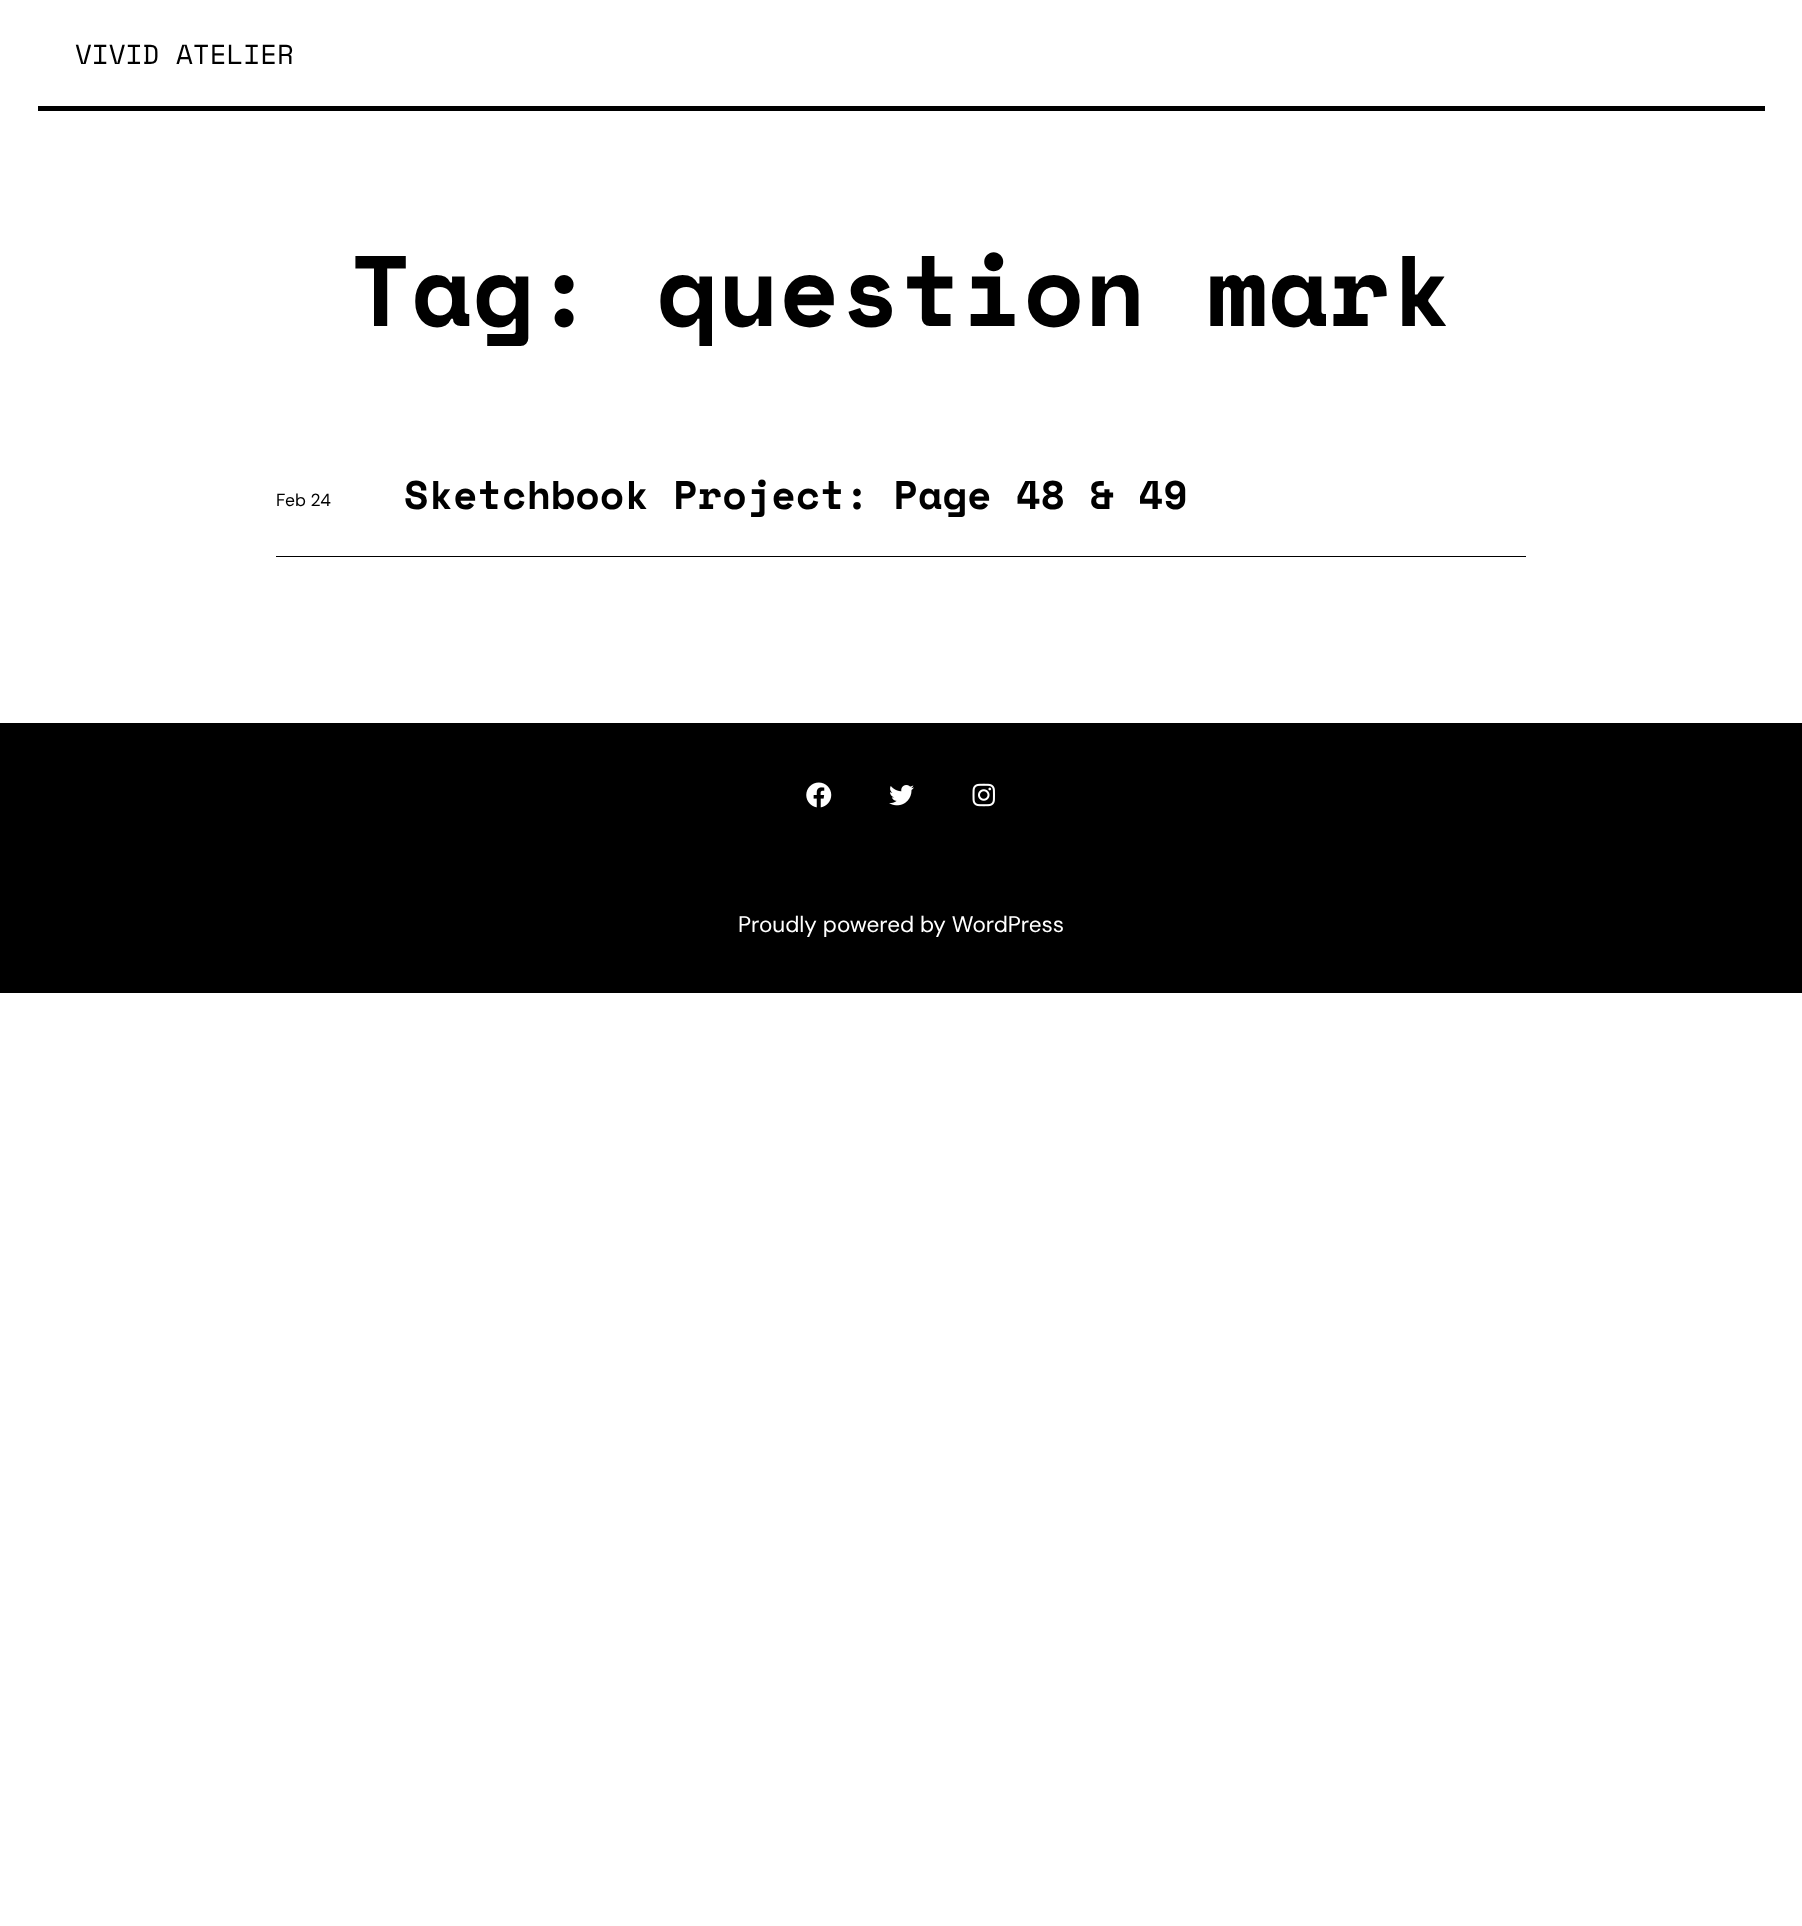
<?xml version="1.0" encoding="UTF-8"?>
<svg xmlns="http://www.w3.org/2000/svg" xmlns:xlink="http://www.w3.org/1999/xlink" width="1802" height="1926">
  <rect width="100%" height="100%" fill="#ffffff" />
  <rect x="38" y="106" width="1727" height="5" fill="#000000" />
  <rect x="276" y="556" width="1250" height="1" fill="#000000" />
  <rect y="723" width="1802" height="270" fill="#000000" />
  <image x="806" y="782" width="26" height="26" xlink:href="image1.png" />
  <image x="889" y="785" width="25" height="21" xlink:href="image2.png" />
  <image x="972" y="783" width="23" height="24" xlink:href="image3.png" />
  <text x="75" y="64" style="font-family: Space Mono; font-size: 27.5px; fill: #000000">VIVID ATELIER</text>
  <text x="350" y="326" style="font-family: Space Mono; font-size: 100px; font-weight: bold; fill: #000000">Tag: question mark</text>
  <text x="276" y="506" style="font-family: DM Sans; font-size: 17.5px; fill: #000000">Feb 24</text>
  <text x="404" y="509" style="font-family: Space Mono; font-size: 40px; font-weight: bold; fill: #000000">Sketchbook Project: Page 48 &amp; 49</text>
  <text x="738" y="932" style="font-family: DM Sans; font-size: 22.5px; fill: #ffffff">Proudly powered by WordPress</text>
</svg>
